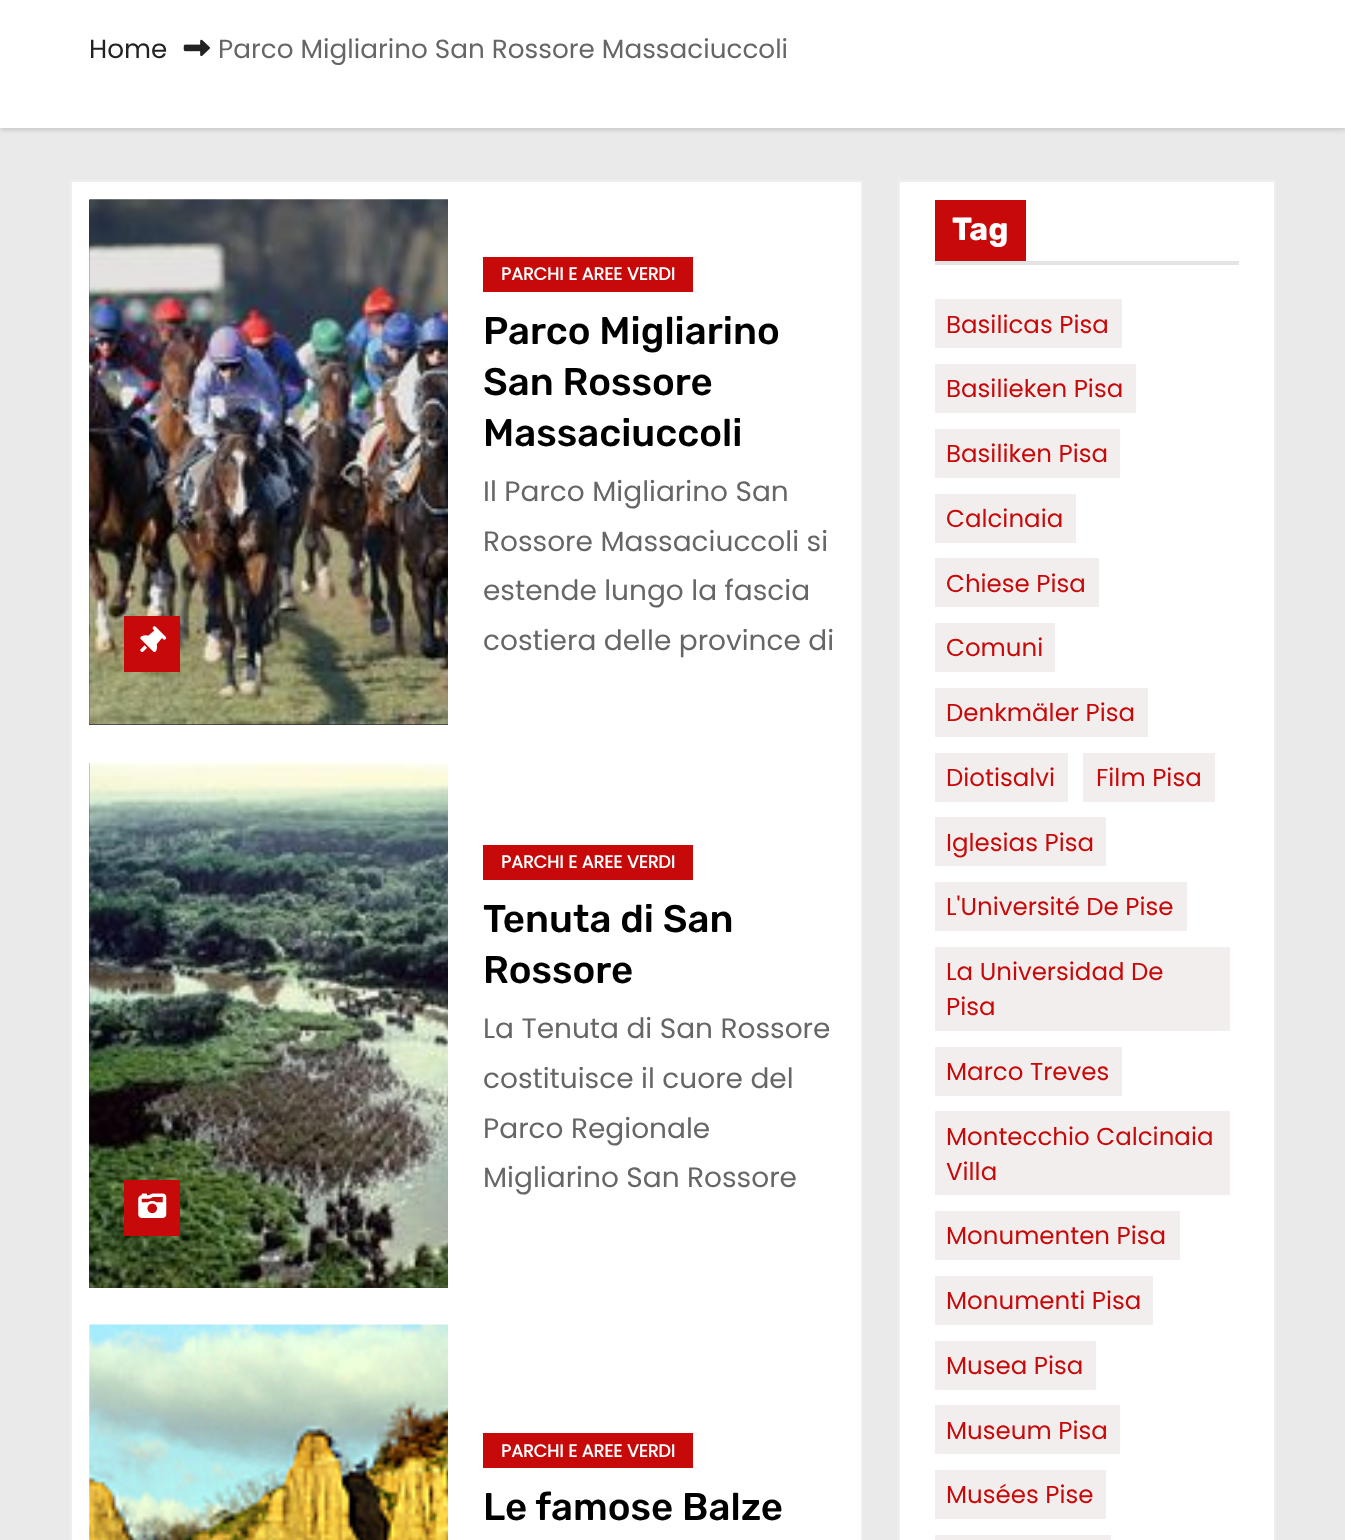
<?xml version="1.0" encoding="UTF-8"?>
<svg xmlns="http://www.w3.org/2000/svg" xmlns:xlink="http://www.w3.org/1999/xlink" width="1345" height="1540">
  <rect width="100%" height="100%" fill="#eaeaea" />
  <rect y="-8" width="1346" height="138" fill="#000000" fill-opacity="0.15" filter="blur(2.5px)" />
  <rect width="1345" height="128" fill="#ffffff" />
  <image x="183" y="39" width="27" height="18" xlink:href="image1.png" />
  <rect x="71" y="181" width="791" height="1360" fill="#ffffff" stroke="#eeeeee" stroke-width="2" />
  <rect x="89" y="200" width="359" height="525" fill="#333333" />
  <image x="89" y="199" width="359" height="526" xlink:href="image2.png" />
  <rect x="124" y="616" width="56" height="56" fill="#c70909" />
  <image x="140" y="626" width="27" height="26" xlink:href="image3.png" />
  <rect x="483" y="257" width="210" height="35" fill="#c70909" />
  <rect x="89" y="763" width="359" height="525" fill="#333333" />
  <image x="89" y="762" width="359" height="526" xlink:href="image4.png" />
  <rect x="124" y="1180" width="56" height="56" fill="#c70909" />
  <image x="138" y="1193" width="29" height="25" xlink:href="image5.png" />
  <rect x="483" y="845" width="210" height="35" fill="#c70909" />
  <image x="89" y="1324" width="359" height="216" xlink:href="image6.png" />
  <rect x="483" y="1433" width="210" height="35" fill="#c70909" />
  <rect x="899" y="181" width="376" height="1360" fill="#ffffff" stroke="#eeeeee" stroke-width="2" />
  <rect x="935" y="261" width="304" height="4" fill="#e4e4e4" />
  <rect x="935" y="200" width="91" height="61" fill="#c70909" />
  <rect x="935" y="299" width="187" height="49" fill="#f3eeee" />
  <rect x="935" y="364" width="201" height="49" fill="#f3eeee" />
  <rect x="935" y="429" width="185" height="49" fill="#f3eeee" />
  <rect x="935" y="494" width="141" height="49" fill="#f3eeee" />
  <rect x="935" y="558" width="164" height="49" fill="#f3eeee" />
  <rect x="935" y="623" width="120" height="49" fill="#f3eeee" />
  <rect x="935" y="688" width="213" height="49" fill="#f3eeee" />
  <rect x="935" y="753" width="133" height="49" fill="#f3eeee" />
  <rect x="1083" y="753" width="132" height="49" fill="#f3eeee" />
  <rect x="935" y="817" width="171" height="49" fill="#f3eeee" />
  <rect x="935" y="882" width="252" height="49" fill="#f3eeee" />
  <rect x="935" y="947" width="295" height="84" fill="#f3eeee" />
  <rect x="935" y="1047" width="187" height="49" fill="#f3eeee" />
  <rect x="935" y="1111" width="295" height="84" fill="#f3eeee" />
  <rect x="935" y="1211" width="245" height="49" fill="#f3eeee" />
  <rect x="935" y="1276" width="218" height="49" fill="#f3eeee" />
  <rect x="935" y="1341" width="161" height="49" fill="#f3eeee" />
  <rect x="935" y="1405" width="185" height="49" fill="#f3eeee" />
  <rect x="935" y="1470" width="171" height="49" fill="#f3eeee" />
  <rect x="935" y="1535" width="176" height="5" fill="#f3eeee" />
  <text x="89" y="58" style="font-family: Poppins; font-size: 26.25px; fill: #222222">Home</text>
  <text x="218" y="58" style="font-family: Poppins; font-size: 26.25px; fill: #666666">Parco Migliarino San Rossore Massaciuccoli</text>
  <text x="501" y="280" style="font-family: Poppins; font-size: 17.5px; font-weight: bold; fill: #ffffff">PARCHI E AREE VERDI</text>
  <text x="483" y="344" style="font-family: Rubik; font-size: 38.5px; font-weight: 500; fill: #000000">Parco Migliarino</text>
  <text x="483" y="395" style="font-family: Rubik; font-size: 38.5px; font-weight: 500; fill: #000000">San Rossore</text>
  <text x="483" y="446" style="font-family: Rubik; font-size: 38.5px; font-weight: 500; fill: #000000">Massaciuccoli</text>
  <text x="483" y="501" style="font-family: Poppins; font-size: 28px; fill: #666666">Il Parco Migliarino San</text>
  <text x="483" y="551" style="font-family: Poppins; font-size: 28px; fill: #666666">Rossore Massaciuccoli si</text>
  <text x="483" y="600" style="font-family: Poppins; font-size: 28px; fill: #666666">estende lungo la fascia</text>
  <text x="483" y="650" style="font-family: Poppins; font-size: 28px; fill: #666666">costiera delle province di</text>
  <text x="501" y="868" style="font-family: Poppins; font-size: 17.5px; font-weight: bold; fill: #ffffff">PARCHI E AREE VERDI</text>
  <text x="483" y="932" style="font-family: Rubik; font-size: 38.5px; font-weight: 500; fill: #000000">Tenuta di San</text>
  <text x="483" y="983" style="font-family: Rubik; font-size: 38.5px; font-weight: 500; fill: #000000">Rossore</text>
  <text x="483" y="1038" style="font-family: Poppins; font-size: 28px; fill: #666666">La Tenuta di San Rossore</text>
  <text x="483" y="1088" style="font-family: Poppins; font-size: 28px; fill: #666666">costituisce il cuore del</text>
  <text x="483" y="1138" style="font-family: Poppins; font-size: 28px; fill: #666666">Parco Regionale</text>
  <text x="483" y="1187" style="font-family: Poppins; font-size: 28px; fill: #666666">Migliarino San Rossore</text>
  <text x="501" y="1457" style="font-family: Poppins; font-size: 17.5px; font-weight: bold; fill: #ffffff">PARCHI E AREE VERDI</text>
  <text x="483" y="1520" style="font-family: Rubik; font-size: 38.5px; font-weight: 500; fill: #000000">Le famose Balze</text>
  <text x="952" y="240" style="font-family: Rubik; font-size: 32px; font-weight: bold; fill: #ffffff">Tag</text>
  <text x="946" y="333" style="font-family: Poppins; font-size: 24.5px; fill: #c70909">Basilicas Pisa</text>
  <text x="946" y="397" style="font-family: Poppins; font-size: 24.5px; fill: #c70909">Basilieken Pisa</text>
  <text x="946" y="462" style="font-family: Poppins; font-size: 24.5px; fill: #c70909">Basiliken Pisa</text>
  <text x="946" y="527" style="font-family: Poppins; font-size: 24.5px; fill: #c70909">Calcinaia</text>
  <text x="946" y="592" style="font-family: Poppins; font-size: 24.5px; fill: #c70909">Chiese Pisa</text>
  <text x="946" y="656" style="font-family: Poppins; font-size: 24.5px; fill: #c70909">Comuni</text>
  <text x="946" y="721" style="font-family: Poppins; font-size: 24.5px; fill: #c70909">Denkmäler Pisa</text>
  <text x="946" y="786" style="font-family: Poppins; font-size: 24.5px; fill: #c70909">Diotisalvi</text>
  <text x="1096" y="786" style="font-family: Poppins; font-size: 24.5px; fill: #c70909">Film Pisa</text>
  <text x="946" y="851" style="font-family: Poppins; font-size: 24.5px; fill: #c70909">Iglesias Pisa</text>
  <text x="946" y="915" style="font-family: Poppins; font-size: 24.5px; fill: #c70909">L'Université De Pise</text>
  <text x="946" y="980" style="font-family: Poppins; font-size: 24.5px; fill: #c70909">La Universidad De</text>
  <text x="946" y="1015" style="font-family: Poppins; font-size: 24.5px; fill: #c70909">Pisa</text>
  <text x="946" y="1080" style="font-family: Poppins; font-size: 24.5px; fill: #c70909">Marco Treves</text>
  <text x="946" y="1145" style="font-family: Poppins; font-size: 24.5px; fill: #c70909">Montecchio Calcinaia</text>
  <text x="946" y="1180" style="font-family: Poppins; font-size: 24.5px; fill: #c70909">Villa</text>
  <text x="946" y="1244" style="font-family: Poppins; font-size: 24.5px; fill: #c70909">Monumenten Pisa</text>
  <text x="946" y="1309" style="font-family: Poppins; font-size: 24.5px; fill: #c70909">Monumenti Pisa</text>
  <text x="946" y="1374" style="font-family: Poppins; font-size: 24.5px; fill: #c70909">Musea Pisa</text>
  <text x="946" y="1439" style="font-family: Poppins; font-size: 24.5px; fill: #c70909">Museum Pisa</text>
  <text x="946" y="1503" style="font-family: Poppins; font-size: 24.5px; fill: #c70909">Musées Pise</text>
</svg>
